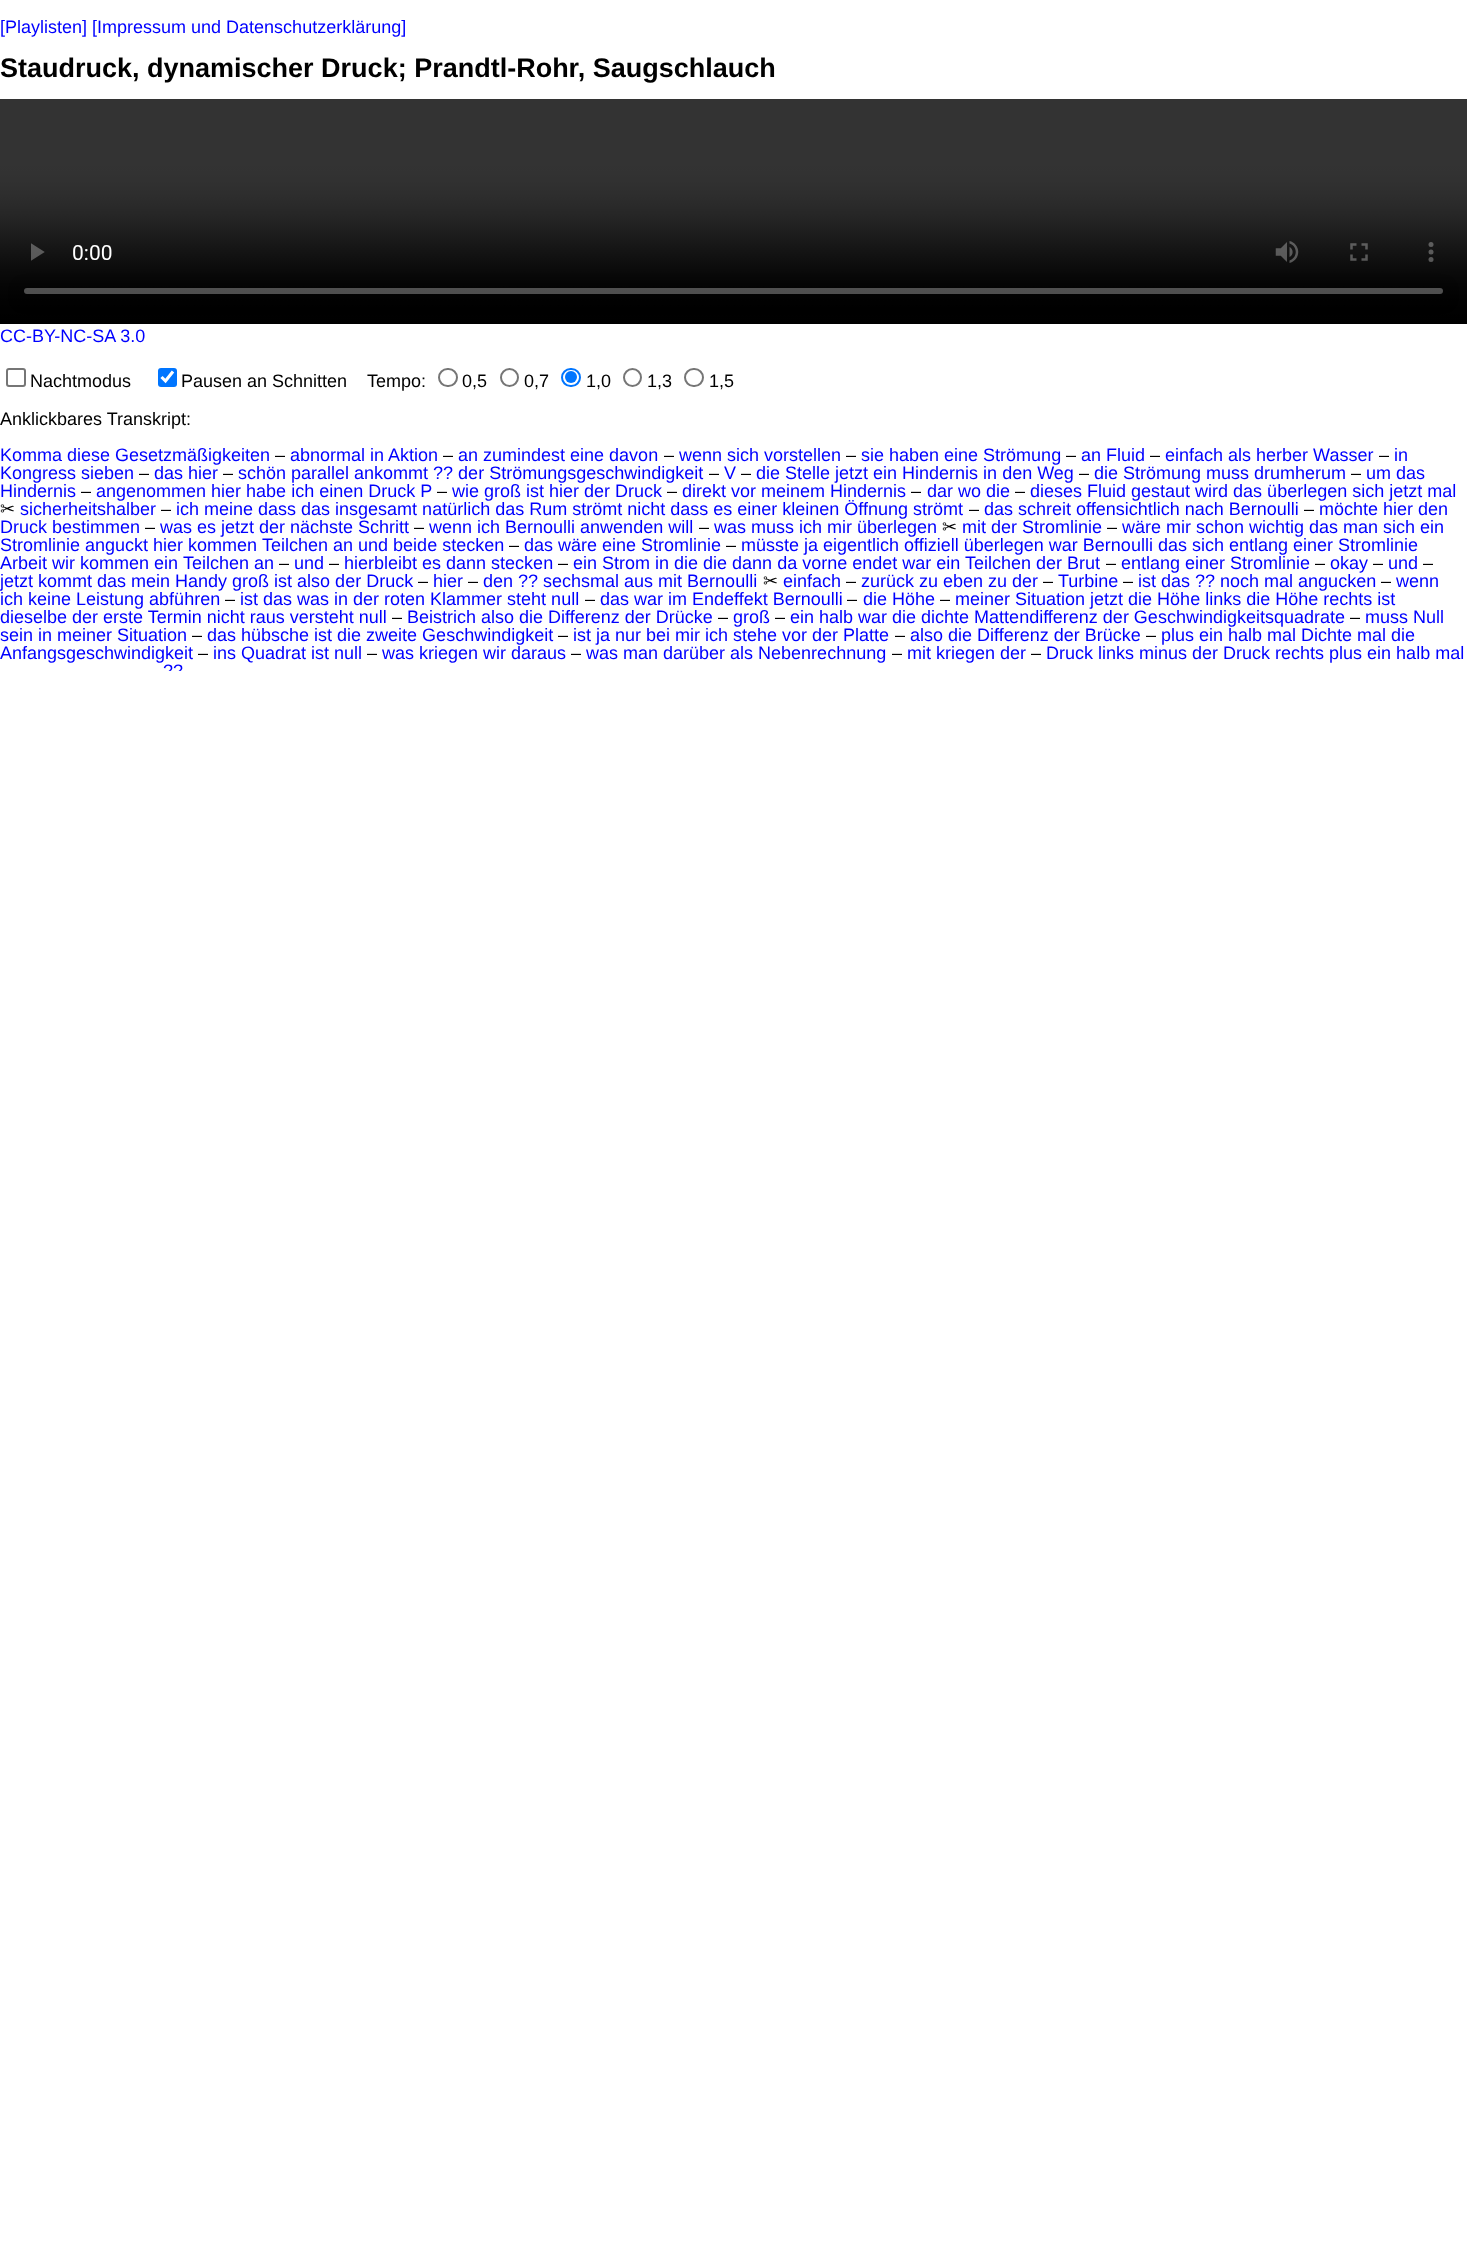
<?xml version="1.0" encoding="UTF-8"?>
<svg xmlns="http://www.w3.org/2000/svg" xmlns:xlink="http://www.w3.org/1999/xlink" width="1467" height="2244">
  <defs>
    <clipPath id="clip1"><rect y="446" width="1467" height="225" /></clipPath>
  </defs>
  <rect width="100%" height="100%" fill="#ffffff" />
  <image x="0" y="99" width="1467" height="225" xlink:href="image1.png" />
  <rect x="7" y="369" width="18" height="17" rx="2" fill="none" stroke="#767676" stroke-width="2" />
  <rect x="158" y="368" width="19" height="19" rx="3" fill="#0075ff" />
  <path d="M 161.5 377 l 4 4 l 7.5 -9.5" fill="none" stroke="#ffffff" stroke-width="3.1" />
  <rect x="439" y="369" width="18" height="17" rx="8.5" fill="none" stroke="#767676" stroke-width="2" />
  <circle cx="509.5" cy="377.5" r="8.5" fill="none" stroke="#767676" stroke-width="2" />
  <rect x="562" y="369" width="18" height="17" rx="8.5" fill="none" stroke="#0075ff" stroke-width="2" />
  <circle cx="571" cy="377" r="6" fill="#0075ff" />
  <circle cx="632.5" cy="377.5" r="8.5" fill="none" stroke="#767676" stroke-width="2" />
  <rect x="685" y="369" width="18" height="17" rx="8.5" fill="none" stroke="#767676" stroke-width="2" />
  <text x="0" y="33" style="font-family: Liberation Sans; font-size: 18px; fill: #0000ff">[Playlisten] [Impressum und Datenschutzerklärung]</text>
  <text x="0" y="77" style="font-family: Liberation Sans; font-size: 27px; font-weight: bold; fill: #000000">Staudruck, dynamischer Druck; Prandtl-Rohr, Saugschlauch</text>
  <text x="0" y="342" style="font-family: Liberation Sans; font-size: 18px; fill: #0000ff">CC-BY-NC-SA 3.0</text>
  <text x="30" y="387" style="font-family: Liberation Sans; font-size: 18px; fill: #000000">Nachtmodus</text>
  <text x="181" y="387" style="font-family: Liberation Sans; font-size: 18px; fill: #000000">Pausen an Schnitten</text>
  <text x="367" y="387" style="font-family: Liberation Sans; font-size: 18px; fill: #000000">Tempo:</text>
  <text x="462" y="387" style="font-family: Liberation Sans; font-size: 18px; fill: #000000">0,5</text>
  <text x="524" y="387" style="font-family: Liberation Sans; font-size: 18px; fill: #000000">0,7</text>
  <text x="586" y="387" style="font-family: Liberation Sans; font-size: 18px; fill: #000000">1,0</text>
  <text x="647" y="387" style="font-family: Liberation Sans; font-size: 18px; fill: #000000">1,3</text>
  <text x="709" y="387" style="font-family: Liberation Sans; font-size: 18px; fill: #000000">1,5</text>
  <text x="0" y="425" style="font-family: Liberation Sans; font-size: 18px; fill: #000000">Anklickbares Transkript:</text>
  <text x="0" y="461" style="font-family: Liberation Sans; font-size: 18px; fill: #0000ff">Komma diese Gesetzmäßigkeiten</text>
  <text x="275" y="461" style="font-family: Liberation Sans; font-size: 18px; fill: #000000">–</text>
  <text x="290" y="461" style="font-family: Liberation Sans; font-size: 18px; fill: #0000ff">abnormal in</text>
  <text x="388" y="461" style="font-family: Liberation Sans; font-size: 18px; fill: #0000ff">Aktion</text>
  <text x="443" y="461" style="font-family: Liberation Sans; font-size: 18px; fill: #000000">–</text>
  <text x="458" y="461" style="font-family: Liberation Sans; font-size: 18px; fill: #0000ff">an zumindest eine davon</text>
  <text x="664" y="461" style="font-family: Liberation Sans; font-size: 18px; fill: #000000">–</text>
  <text x="679" y="461" style="font-family: Liberation Sans; font-size: 18px; fill: #0000ff">wenn sich vorstellen</text>
  <text x="846" y="461" style="font-family: Liberation Sans; font-size: 18px; fill: #000000">–</text>
  <text x="861" y="461" style="font-family: Liberation Sans; font-size: 18px; fill: #0000ff">sie haben eine Strömung</text>
  <text x="1066" y="461" style="font-family: Liberation Sans; font-size: 18px; fill: #000000">–</text>
  <text x="1081" y="461" style="font-family: Liberation Sans; font-size: 18px; fill: #0000ff">an Fluid</text>
  <text x="1150" y="461" style="font-family: Liberation Sans; font-size: 18px; fill: #000000">–</text>
  <text x="1165" y="461" style="font-family: Liberation Sans; font-size: 18px; fill: #0000ff">einfach als herber Wasser</text>
  <text x="1379" y="461" style="font-family: Liberation Sans; font-size: 18px; fill: #000000">–</text>
  <text x="1394" y="461" style="font-family: Liberation Sans; font-size: 18px; fill: #0000ff">in</text>
  <text x="0" y="479" style="font-family: Liberation Sans; font-size: 18px; fill: #0000ff">Kongress sieben</text>
  <text x="139" y="479" style="font-family: Liberation Sans; font-size: 18px; fill: #000000">–</text>
  <text x="154" y="479" style="font-family: Liberation Sans; font-size: 18px; fill: #0000ff">das hier</text>
  <text x="223" y="479" style="font-family: Liberation Sans; font-size: 18px; fill: #000000">–</text>
  <text x="238" y="479" style="font-family: Liberation Sans; font-size: 18px; fill: #0000ff">schön parallel ankommt ?? der Strömungsgeschwindigkeit</text>
  <text x="709" y="479" style="font-family: Liberation Sans; font-size: 18px; fill: #000000">–</text>
  <text x="724" y="479" style="font-family: Liberation Sans; font-size: 18px; fill: #0000ff">V</text>
  <text x="741" y="479" style="font-family: Liberation Sans; font-size: 18px; fill: #000000">–</text>
  <text x="756" y="479" style="font-family: Liberation Sans; font-size: 18px; fill: #0000ff">die Stelle jetzt ein Hindernis in den Weg</text>
  <text x="1079" y="479" style="font-family: Liberation Sans; font-size: 18px; fill: #000000">–</text>
  <text x="1094" y="479" style="font-family: Liberation Sans; font-size: 18px; fill: #0000ff">die Strömung muss drumherum</text>
  <text x="1351" y="479" style="font-family: Liberation Sans; font-size: 18px; fill: #000000">–</text>
  <text x="1366" y="479" style="font-family: Liberation Sans; font-size: 18px; fill: #0000ff">um das</text>
  <text x="0" y="497" style="font-family: Liberation Sans; font-size: 18px; fill: #0000ff">Hindernis</text>
  <text x="81" y="497" style="font-family: Liberation Sans; font-size: 18px; fill: #000000">–</text>
  <text x="96" y="497" style="font-family: Liberation Sans; font-size: 18px; fill: #0000ff">angenommen hier habe ich einen Druck P</text>
  <text x="437" y="497" style="font-family: Liberation Sans; font-size: 18px; fill: #000000">–</text>
  <text x="452" y="497" style="font-family: Liberation Sans; font-size: 18px; fill: #0000ff">wie groß ist hier der Druck</text>
  <text x="667" y="497" style="font-family: Liberation Sans; font-size: 18px; fill: #000000">–</text>
  <text x="682" y="497" style="font-family: Liberation Sans; font-size: 18px; fill: #0000ff">direkt vor meinem Hindernis</text>
  <text x="911" y="497" style="font-family: Liberation Sans; font-size: 18px; fill: #000000">–</text>
  <text x="927" y="497" style="font-family: Liberation Sans; font-size: 18px; fill: #0000ff">dar wo die</text>
  <text x="1015" y="497" style="font-family: Liberation Sans; font-size: 18px; fill: #000000">–</text>
  <text x="1030" y="497" style="font-family: Liberation Sans; font-size: 18px; fill: #0000ff">dieses Fluid gestaut wird das überlegen sich jetzt mal</text>
  <text x="0" y="515" style="font-family: DejaVu Sans; font-size: 18px; fill: #000000">✂</text>
  <text x="20" y="515" style="font-family: Liberation Sans; font-size: 18px; fill: #0000ff">sicherheitshalber</text>
  <text x="161" y="515" style="font-family: Liberation Sans; font-size: 18px; fill: #000000">–</text>
  <text x="176" y="515" style="font-family: Liberation Sans; font-size: 18px; fill: #0000ff">ich meine dass das insgesamt natürlich das Rum strömt nicht dass es einer kleinen Öffnung strömt</text>
  <text x="969" y="515" style="font-family: Liberation Sans; font-size: 18px; fill: #000000">–</text>
  <text x="984" y="515" style="font-family: Liberation Sans; font-size: 18px; fill: #0000ff">das schreit offensichtlich nach Bernoulli</text>
  <text x="1304" y="515" style="font-family: Liberation Sans; font-size: 18px; fill: #000000">–</text>
  <text x="1319" y="515" style="font-family: Liberation Sans; font-size: 18px; fill: #0000ff">möchte hier den</text>
  <text x="0" y="533" style="font-family: Liberation Sans; font-size: 18px; fill: #0000ff">Druck bestimmen</text>
  <text x="145" y="533" style="font-family: Liberation Sans; font-size: 18px; fill: #000000">–</text>
  <text x="160" y="533" style="font-family: Liberation Sans; font-size: 18px; fill: #0000ff">was es jetzt der nächste Schritt</text>
  <text x="414" y="533" style="font-family: Liberation Sans; font-size: 18px; fill: #000000">–</text>
  <text x="429" y="533" style="font-family: Liberation Sans; font-size: 18px; fill: #0000ff">wenn ich Bernoulli anwenden will</text>
  <text x="699" y="533" style="font-family: Liberation Sans; font-size: 18px; fill: #000000">–</text>
  <text x="714" y="533" style="font-family: Liberation Sans; font-size: 18px; fill: #0000ff">was muss ich mir überlegen</text>
  <text x="942" y="533" style="font-family: DejaVu Sans; font-size: 18px; fill: #000000">✂</text>
  <text x="962" y="533" style="font-family: Liberation Sans; font-size: 18px; fill: #0000ff">mit der Stromlinie</text>
  <text x="1107" y="533" style="font-family: Liberation Sans; font-size: 18px; fill: #000000">–</text>
  <text x="1122" y="533" style="font-family: Liberation Sans; font-size: 18px; fill: #0000ff">wäre mir schon wichtig das man sich ein</text>
  <text x="0" y="551" style="font-family: Liberation Sans; font-size: 18px; fill: #0000ff">Stromlinie anguckt hier kommen</text>
  <text x="262" y="551" style="font-family: Liberation Sans; font-size: 18px; fill: #0000ff">Teilchen an und beide stecken</text>
  <text x="509" y="551" style="font-family: Liberation Sans; font-size: 18px; fill: #000000">–</text>
  <text x="524" y="551" style="font-family: Liberation Sans; font-size: 18px; fill: #0000ff">das wäre eine Stromlinie</text>
  <text x="726" y="551" style="font-family: Liberation Sans; font-size: 18px; fill: #000000">–</text>
  <text x="741" y="551" style="font-family: Liberation Sans; font-size: 18px; fill: #0000ff">müsste ja eigentlich offiziell überlegen war Bernoulli das sich entlang einer Stromlinie</text>
  <text x="0" y="569" style="font-family: Liberation Sans; font-size: 18px; fill: #0000ff">Arbeit wir kommen ein</text>
  <text x="183" y="569" style="font-family: Liberation Sans; font-size: 18px; fill: #0000ff">Teilchen an</text>
  <text x="279" y="569" style="font-family: Liberation Sans; font-size: 18px; fill: #000000">–</text>
  <text x="294" y="569" style="font-family: Liberation Sans; font-size: 18px; fill: #0000ff">und</text>
  <text x="329" y="569" style="font-family: Liberation Sans; font-size: 18px; fill: #000000">–</text>
  <text x="344" y="569" style="font-family: Liberation Sans; font-size: 18px; fill: #0000ff">hierbleibt es dann stecken</text>
  <text x="558" y="569" style="font-family: Liberation Sans; font-size: 18px; fill: #000000">–</text>
  <text x="573" y="569" style="font-family: Liberation Sans; font-size: 18px; fill: #0000ff">ein Strom in die die dann da vorne endet war ein</text>
  <text x="965" y="569" style="font-family: Liberation Sans; font-size: 18px; fill: #0000ff">Teilchen der Brut</text>
  <text x="1106" y="569" style="font-family: Liberation Sans; font-size: 18px; fill: #000000">–</text>
  <text x="1121" y="569" style="font-family: Liberation Sans; font-size: 18px; fill: #0000ff">entlang einer Stromlinie</text>
  <text x="1315" y="569" style="font-family: Liberation Sans; font-size: 18px; fill: #000000">–</text>
  <text x="1330" y="569" style="font-family: Liberation Sans; font-size: 18px; fill: #0000ff">okay</text>
  <text x="1373" y="569" style="font-family: Liberation Sans; font-size: 18px; fill: #000000">–</text>
  <text x="1388" y="569" style="font-family: Liberation Sans; font-size: 18px; fill: #0000ff">und</text>
  <text x="1423" y="569" style="font-family: Liberation Sans; font-size: 18px; fill: #000000">–</text>
  <text x="0" y="587" style="font-family: Liberation Sans; font-size: 18px; fill: #0000ff">jetzt kommt das mein Handy groß ist also der Druck</text>
  <text x="418" y="587" style="font-family: Liberation Sans; font-size: 18px; fill: #000000">–</text>
  <text x="433" y="587" style="font-family: Liberation Sans; font-size: 18px; fill: #0000ff">hier</text>
  <text x="468" y="587" style="font-family: Liberation Sans; font-size: 18px; fill: #000000">–</text>
  <text x="483" y="587" style="font-family: Liberation Sans; font-size: 18px; fill: #0000ff">den ?? sechsmal aus mit Bernoulli</text>
  <text x="763" y="587" style="font-family: DejaVu Sans; font-size: 18px; fill: #000000">✂</text>
  <text x="783" y="587" style="font-family: Liberation Sans; font-size: 18px; fill: #0000ff">einfach</text>
  <text x="846" y="587" style="font-family: Liberation Sans; font-size: 18px; fill: #000000">–</text>
  <text x="861" y="587" style="font-family: Liberation Sans; font-size: 18px; fill: #0000ff">zurück zu eben zu der</text>
  <text x="1043" y="587" style="font-family: Liberation Sans; font-size: 18px; fill: #000000">–</text>
  <text x="1058" y="587" style="font-family: Liberation Sans; font-size: 18px; fill: #0000ff">Turbine</text>
  <text x="1123" y="587" style="font-family: Liberation Sans; font-size: 18px; fill: #000000">–</text>
  <text x="1138" y="587" style="font-family: Liberation Sans; font-size: 18px; fill: #0000ff">ist das ?? noch mal angucken</text>
  <text x="1381" y="587" style="font-family: Liberation Sans; font-size: 18px; fill: #000000">–</text>
  <text x="1396" y="587" style="font-family: Liberation Sans; font-size: 18px; fill: #0000ff">wenn</text>
  <text x="0" y="605" style="font-family: Liberation Sans; font-size: 18px; fill: #0000ff">ich keine Leistung abführen</text>
  <text x="225" y="605" style="font-family: Liberation Sans; font-size: 18px; fill: #000000">–</text>
  <text x="240" y="605" style="font-family: Liberation Sans; font-size: 18px; fill: #0000ff">ist das was in der roten Klammer steht null</text>
  <text x="585" y="605" style="font-family: Liberation Sans; font-size: 18px; fill: #000000">–</text>
  <text x="600" y="605" style="font-family: Liberation Sans; font-size: 18px; fill: #0000ff">das war im Endeffekt Bernoulli</text>
  <text x="847" y="605" style="font-family: Liberation Sans; font-size: 18px; fill: #000000">–</text>
  <text x="863" y="605" style="font-family: Liberation Sans; font-size: 18px; fill: #0000ff">die Höhe</text>
  <text x="940" y="605" style="font-family: Liberation Sans; font-size: 18px; fill: #000000">–</text>
  <text x="955" y="605" style="font-family: Liberation Sans; font-size: 18px; fill: #0000ff">meiner Situation jetzt die Höhe links die Höhe rechts ist</text>
  <text x="0" y="623" style="font-family: Liberation Sans; font-size: 18px; fill: #0000ff">dieselbe der erste Termin nicht raus versteht null</text>
  <text x="392" y="623" style="font-family: Liberation Sans; font-size: 18px; fill: #000000">–</text>
  <text x="407" y="623" style="font-family: Liberation Sans; font-size: 18px; fill: #0000ff">Beistrich also die Differenz der Drücke</text>
  <text x="718" y="623" style="font-family: Liberation Sans; font-size: 18px; fill: #000000">–</text>
  <text x="733" y="623" style="font-family: Liberation Sans; font-size: 18px; fill: #0000ff">groß</text>
  <text x="775" y="623" style="font-family: Liberation Sans; font-size: 18px; fill: #000000">–</text>
  <text x="790" y="623" style="font-family: Liberation Sans; font-size: 18px; fill: #0000ff">ein halb war die dichte Mattendifferenz der Geschwindigkeitsquadrate</text>
  <text x="1350" y="623" style="font-family: Liberation Sans; font-size: 18px; fill: #000000">–</text>
  <text x="1365" y="623" style="font-family: Liberation Sans; font-size: 18px; fill: #0000ff">muss Null</text>
  <text x="0" y="641" style="font-family: Liberation Sans; font-size: 18px; fill: #0000ff">sein in meiner Situation</text>
  <text x="192" y="641" style="font-family: Liberation Sans; font-size: 18px; fill: #000000">–</text>
  <text x="207" y="641" style="font-family: Liberation Sans; font-size: 18px; fill: #0000ff">das hübsche ist die zweite Geschwindigkeit</text>
  <text x="558" y="641" style="font-family: Liberation Sans; font-size: 18px; fill: #000000">–</text>
  <text x="573" y="641" style="font-family: Liberation Sans; font-size: 18px; fill: #0000ff">ist ja nur bei mir ich stehe vor der Platte</text>
  <text x="895" y="641" style="font-family: Liberation Sans; font-size: 18px; fill: #000000">–</text>
  <text x="910" y="641" style="font-family: Liberation Sans; font-size: 18px; fill: #0000ff">also die Differenz der Brücke</text>
  <text x="1146" y="641" style="font-family: Liberation Sans; font-size: 18px; fill: #000000">–</text>
  <text x="1161" y="641" style="font-family: Liberation Sans; font-size: 18px; fill: #0000ff">plus ein halb mal Dichte mal die</text>
  <text x="0" y="659" style="font-family: Liberation Sans; font-size: 18px; fill: #0000ff">Anfangsgeschwindigkeit</text>
  <text x="198" y="659" style="font-family: Liberation Sans; font-size: 18px; fill: #000000">–</text>
  <text x="213" y="659" style="font-family: Liberation Sans; font-size: 18px; fill: #0000ff">ins Quadrat ist null</text>
  <text x="367" y="659" style="font-family: Liberation Sans; font-size: 18px; fill: #000000">–</text>
  <text x="382" y="659" style="font-family: Liberation Sans; font-size: 18px; fill: #0000ff">was kriegen wir daraus</text>
  <text x="571" y="659" style="font-family: Liberation Sans; font-size: 18px; fill: #000000">–</text>
  <text x="586" y="659" style="font-family: Liberation Sans; font-size: 18px; fill: #0000ff">was man darüber als Nebenrechnung</text>
  <text x="892" y="659" style="font-family: Liberation Sans; font-size: 18px; fill: #000000">–</text>
  <text x="907" y="659" style="font-family: Liberation Sans; font-size: 18px; fill: #0000ff">mit kriegen der</text>
  <text x="1031" y="659" style="font-family: Liberation Sans; font-size: 18px; fill: #000000">–</text>
  <text x="1046" y="659" style="font-family: Liberation Sans; font-size: 18px; fill: #0000ff">Druck links minus der Druck rechts plus ein halb mal</text>
  <g clip-path="url(#clip1)">
    <text x="163" y="677" style="font-family: Liberation Sans; font-size: 18px; fill: #0000ff">??</text>
  </g>
</svg>
